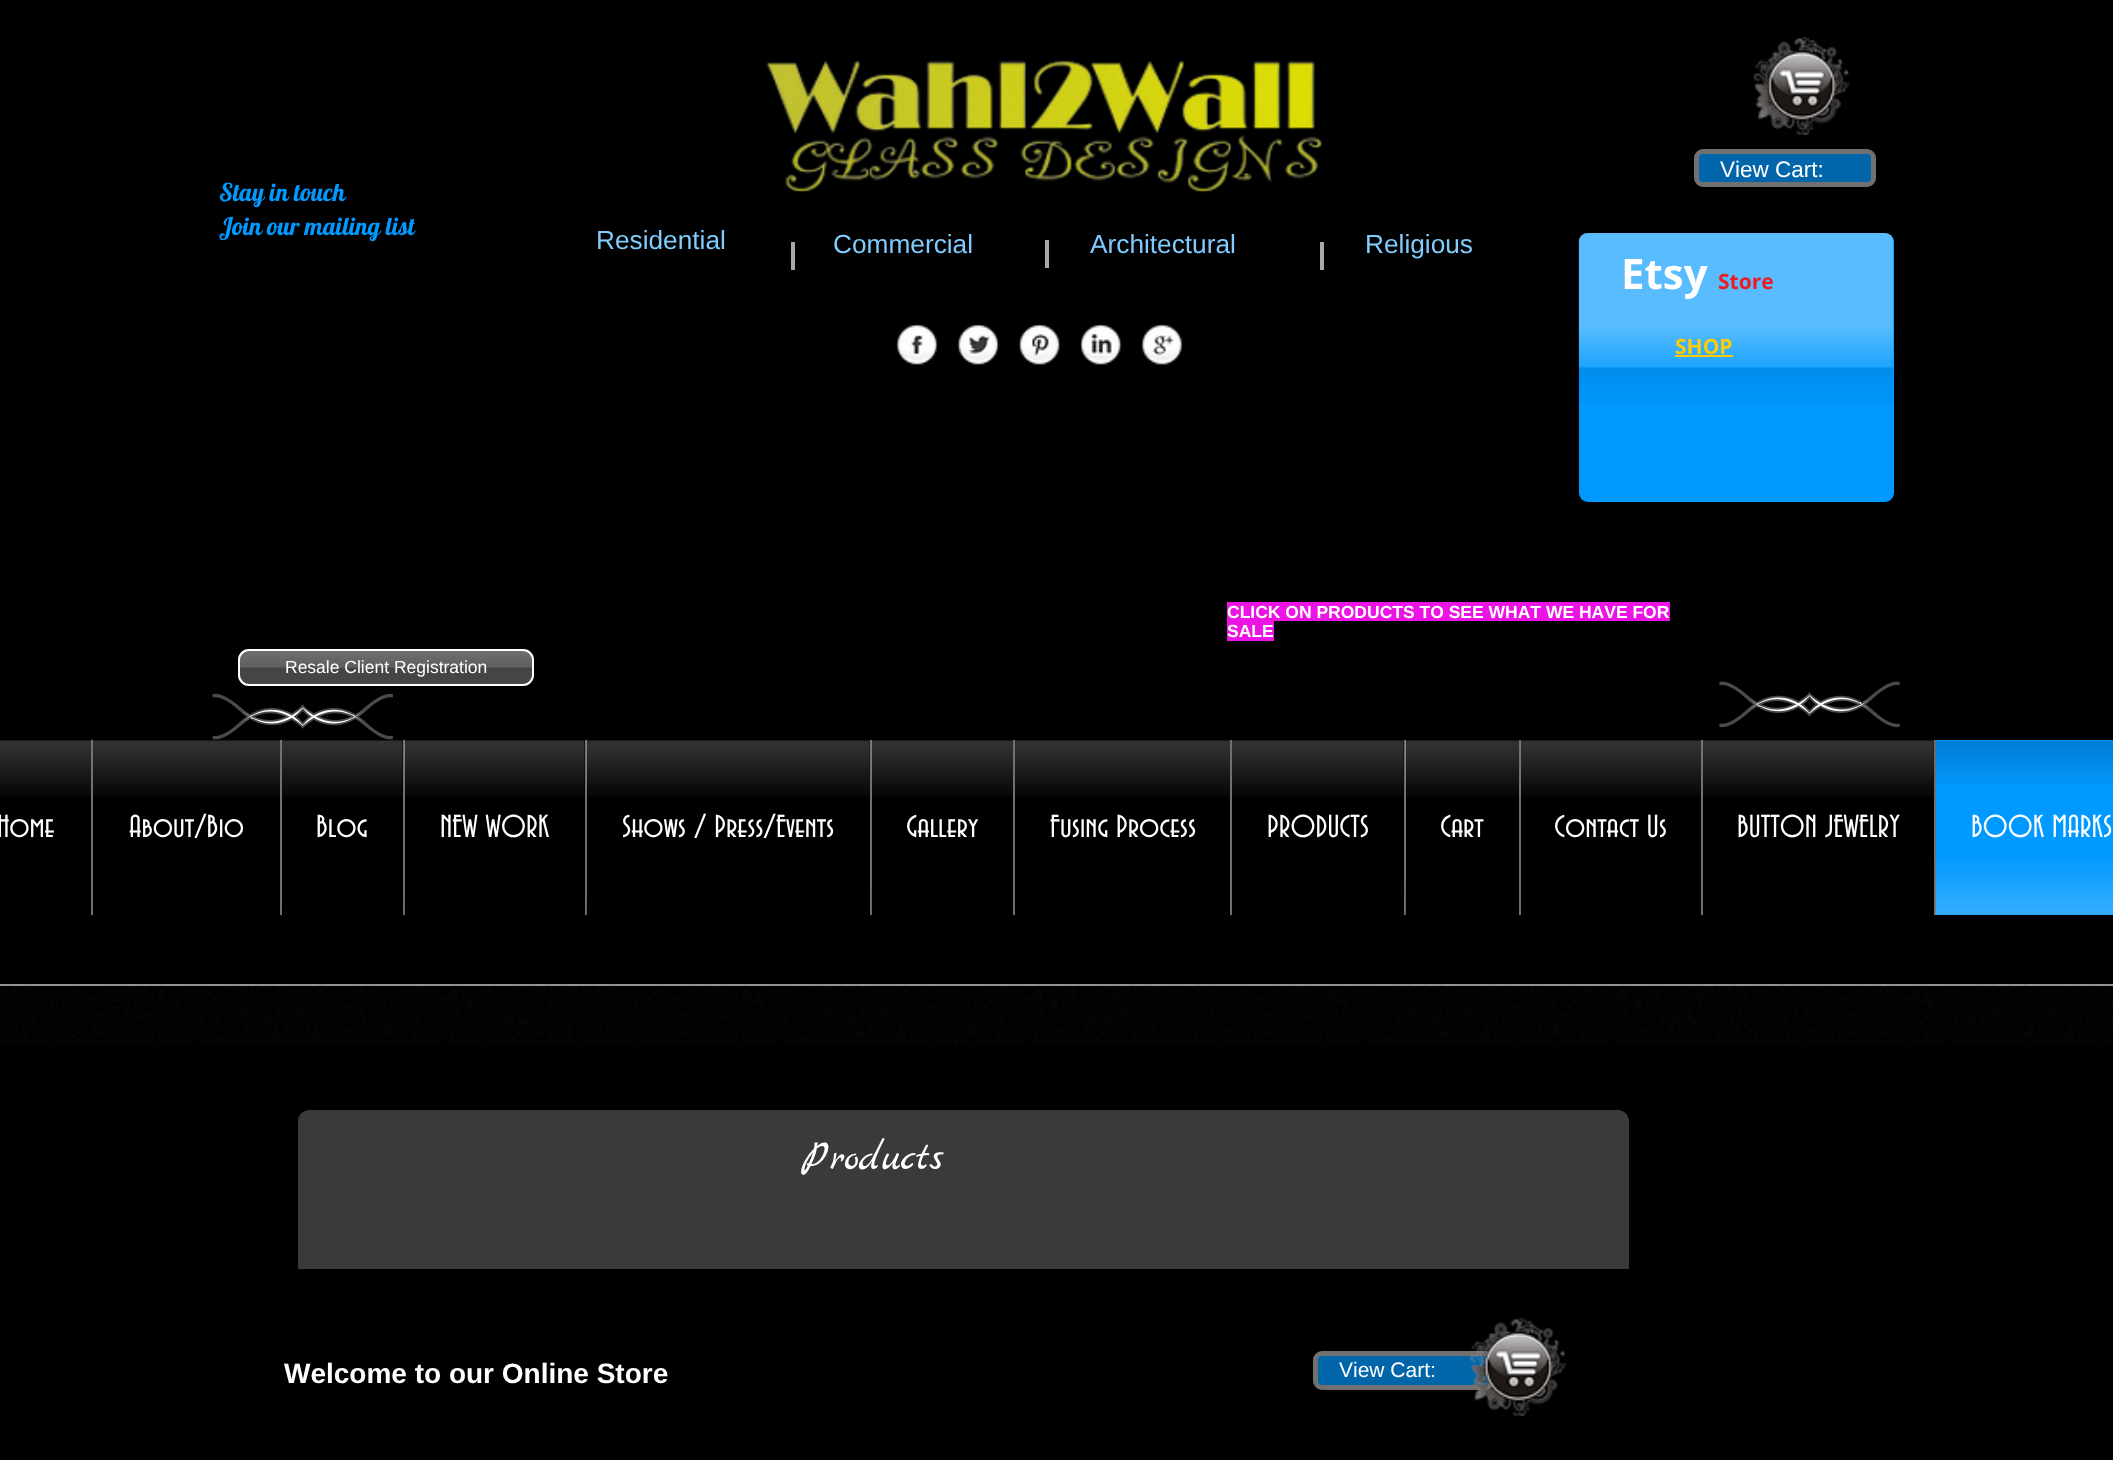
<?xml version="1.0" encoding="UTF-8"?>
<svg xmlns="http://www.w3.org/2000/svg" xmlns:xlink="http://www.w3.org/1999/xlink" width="2113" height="1460">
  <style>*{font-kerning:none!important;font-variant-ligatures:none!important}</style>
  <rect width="100%" height="100%" fill="#000000" />
  <image x="766" y="60" width="556" height="133" xlink:href="image1.png" />
  <image x="1753" y="37" width="97" height="98" xlink:href="image2.png" />
  <rect x="1696.5" y="151.5" width="177" height="33" rx="6.5" fill="#0065a9" stroke="#717070" stroke-width="5" />
  <rect x="791" y="242" width="4" height="28" fill="#aaa8a8" />
  <rect x="1045" y="240" width="4" height="28" fill="#aaa8a8" />
  <rect x="1320" y="242" width="4" height="28" fill="#aaa8a8" />
  <rect x="1579" y="233" width="315" height="269" rx="9" fill="#0099ff" />
  <image x="1578" y="233" width="316" height="170" xlink:href="image3.png" />
  <image x="896" y="323" width="42" height="42" xlink:href="image4.png" />
  <image x="957" y="323" width="43" height="42" xlink:href="image5.png" />
  <image x="1018" y="323" width="43" height="42" xlink:href="image6.png" />
  <image x="1079" y="323" width="43" height="42" xlink:href="image7.png" />
  <image x="1141" y="323" width="42" height="42" xlink:href="image8.png" />
  <rect x="1675" y="355" width="58" height="2" fill="#ffcb05" />
  <rect x="1227" y="602" width="443" height="19" fill="#ec14e5" />
  <rect x="1227" y="621" width="47" height="20" fill="#ec14e5" />
  <image x="212" y="693" width="181" height="47" xlink:href="image9.png" />
  <image x="1719" y="681" width="181" height="47" xlink:href="image10.png" />
  <rect x="238" y="649" width="296" height="37" rx="11" fill="#4a4a4a" />
  <image x="238" y="649" width="296" height="34" xlink:href="image11.png" />
  <rect x="239" y="650" width="294" height="35" rx="10" fill="none" stroke="#ffffff" stroke-width="2" />
  <image x="0" y="740" width="91" height="57" xlink:href="image12.png" />
  <rect x="91" y="740" width="2" height="175" fill="#717070" />
  <image x="92" y="740" width="188" height="57" xlink:href="image13.png" />
  <rect x="92" y="911" width="1" height="4" fill="#6c6c6c" />
  <rect x="280" y="740" width="2" height="175" fill="#717070" />
  <image x="281" y="740" width="122" height="57" xlink:href="image14.png" />
  <rect x="281" y="911" width="1" height="4" fill="#6c6c6c" />
  <rect x="403" y="740" width="2" height="175" fill="#717070" />
  <image x="404" y="740" width="181" height="57" xlink:href="image15.png" />
  <image x="404" y="881" width="1" height="34" xlink:href="image16.png" />
  <rect x="585" y="740" width="2" height="175" fill="#717070" />
  <image x="586" y="740" width="284" height="57" xlink:href="image17.png" />
  <image x="586" y="881" width="1" height="34" xlink:href="image16.png" />
  <rect x="870" y="740" width="2" height="175" fill="#717070" />
  <image x="871" y="740" width="142" height="57" xlink:href="image18.png" />
  <image x="871" y="887" width="1" height="28" xlink:href="image19.png" />
  <rect x="1013" y="740" width="2" height="175" fill="#717070" />
  <image x="1015" y="740" width="215" height="57" xlink:href="image20.png" />
  <rect x="1230" y="740" width="2" height="175" fill="#717070" />
  <image x="1232" y="740" width="172" height="57" xlink:href="image21.png" />
  <rect x="1404" y="740" width="2" height="175" fill="#717070" />
  <image x="1405" y="740" width="114" height="57" xlink:href="image22.png" />
  <image x="1405" y="881" width="1" height="34" xlink:href="image16.png" />
  <rect x="1519" y="740" width="2" height="175" fill="#717070" />
  <image x="1520" y="740" width="181" height="57" xlink:href="image23.png" />
  <rect x="1520" y="911" width="1" height="4" fill="#6c6c6c" />
  <rect x="1701" y="740" width="2" height="175" fill="#717070" />
  <image x="1702" y="740" width="232" height="57" xlink:href="image24.png" />
  <rect x="1702" y="911" width="1" height="4" fill="#6c6c6c" />
  <rect x="1936" y="740" width="177" height="175" fill="#0099ff" />
  <rect x="1934" y="740" width="2" height="175" fill="#717070" />
  <image x="1935" y="740" width="178" height="45" xlink:href="image25.png" />
  <image x="1935" y="858" width="178" height="57" xlink:href="image26.png" />
  <rect y="984" width="2113" height="2" fill="#979797" />
  <image x="0" y="984" width="2113" height="61" xlink:href="image27.png" />
  <path d="M 309 1110 h 1309 c 6 0 11 5 11 11 v 148 h -1331 v -148 c 0 -6 5 -11 11 -11 z" fill="#3b3939" />
  <rect x="1315.5" y="1353.5" width="177" height="34" rx="6.5" fill="#0065a9" stroke="#717070" stroke-width="5" />
  <image x="1470" y="1318" width="96" height="98" xlink:href="image28.png" />
  <text x="1720" y="177" style="font-family: Liberation Sans; font-size: 22.5px; fill: #ffffff">View Cart:</text>
  <text x="219" y="201" style="font-family: Lobster; font-size: 24.5px; fill: #0099ff">Stay in touch</text>
  <text x="219" y="235" style="font-family: Lobster; font-size: 24.5px; fill: #0099ff">Join our mailing list</text>
  <text x="596" y="249" style="font-family: Liberation Sans; font-size: 26.25px; fill: #7fccff">Residential</text>
  <text x="833" y="253" style="font-family: Liberation Sans; font-size: 26.25px; fill: #7fccff">Commercial</text>
  <text x="1090" y="253" style="font-family: Liberation Sans; font-size: 26.25px; fill: #7fccff">Architectural</text>
  <text x="1365" y="253" style="font-family: Liberation Sans; font-size: 26.25px; fill: #7fccff">Religious</text>
  <text x="1621" y="289" style="font-family: Open Sans; font-size: 42px; font-weight: bold; fill: #ffffff">Etsy</text>
  <text x="1718" y="289" style="font-family: Open Sans; font-size: 21px; font-weight: bold; fill: #ed1c24">Store</text>
  <text x="1675" y="354" style="font-family: Open Sans; font-size: 21px; font-weight: bold; fill: #ffcb05">SHOP</text>
  <text x="1227" y="618" style="font-family: Liberation Sans; font-size: 17.5px; font-weight: bold; fill: #ffffff">CLICK ON PRODUCTS TO SEE WHAT WE HAVE FOR</text>
  <text x="1227" y="637" style="font-family: Liberation Sans; font-size: 17.5px; font-weight: bold; fill: #ffffff">SALE</text>
  <text x="285" y="673" style="font-family: Liberation Sans; font-size: 17.5px; fill: #ffffff">Resale Client Registration</text>
  <text x="-3" y="837" style="font-family: 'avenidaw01'; font-size: 33.25px; fill: #ffffff">Home</text>
  <text x="129" y="837" style="font-family: 'avenidaw01'; font-size: 33.25px; fill: #ffffff">About/Bio</text>
  <text x="316" y="837" style="font-family: 'avenidaw01'; font-size: 33.25px; fill: #ffffff">Blog</text>
  <text x="440" y="837" style="font-family: 'avenidaw01'; font-size: 33.25px; fill: #ffffff">NEW WORK</text>
  <text x="622" y="837" style="font-family: 'avenidaw01'; font-size: 33.25px; fill: #ffffff">Shows / Press/Events</text>
  <text x="906" y="837" style="font-family: 'avenidaw01'; font-size: 33.25px; fill: #ffffff">Gallery</text>
  <text x="1050" y="837" style="font-family: 'avenidaw01'; font-size: 33.25px; fill: #ffffff">Fusing Process</text>
  <text x="1267" y="837" style="font-family: 'avenidaw01'; font-size: 33.25px; fill: #ffffff">PRODUCTS</text>
  <text x="1440" y="837" style="font-family: 'avenidaw01'; font-size: 33.25px; fill: #ffffff">Cart</text>
  <text x="1554" y="837" style="font-family: 'avenidaw01'; font-size: 33.25px; fill: #ffffff">Contact Us</text>
  <text x="1737" y="837" style="font-family: 'avenidaw01'; font-size: 33.25px; fill: #ffffff">BUTTON JEWELRY</text>
  <text x="1971" y="837" style="font-family: 'avenidaw01'; font-size: 33.25px; fill: #ffffff">BOOK MARKS</text>
  <text x="802" y="1169" style="font-family: Marck Script; font-size: 42px; fill: #ffffff">Products</text>
  <text x="284" y="1383" style="font-family: Liberation Sans; font-size: 28px; font-weight: bold; fill: #ffffff">Welcome to our Online Store</text>
  <text x="1339" y="1377" style="font-family: Liberation Sans; font-size: 21px; fill: #ffffff">View Cart:</text>
</svg>
